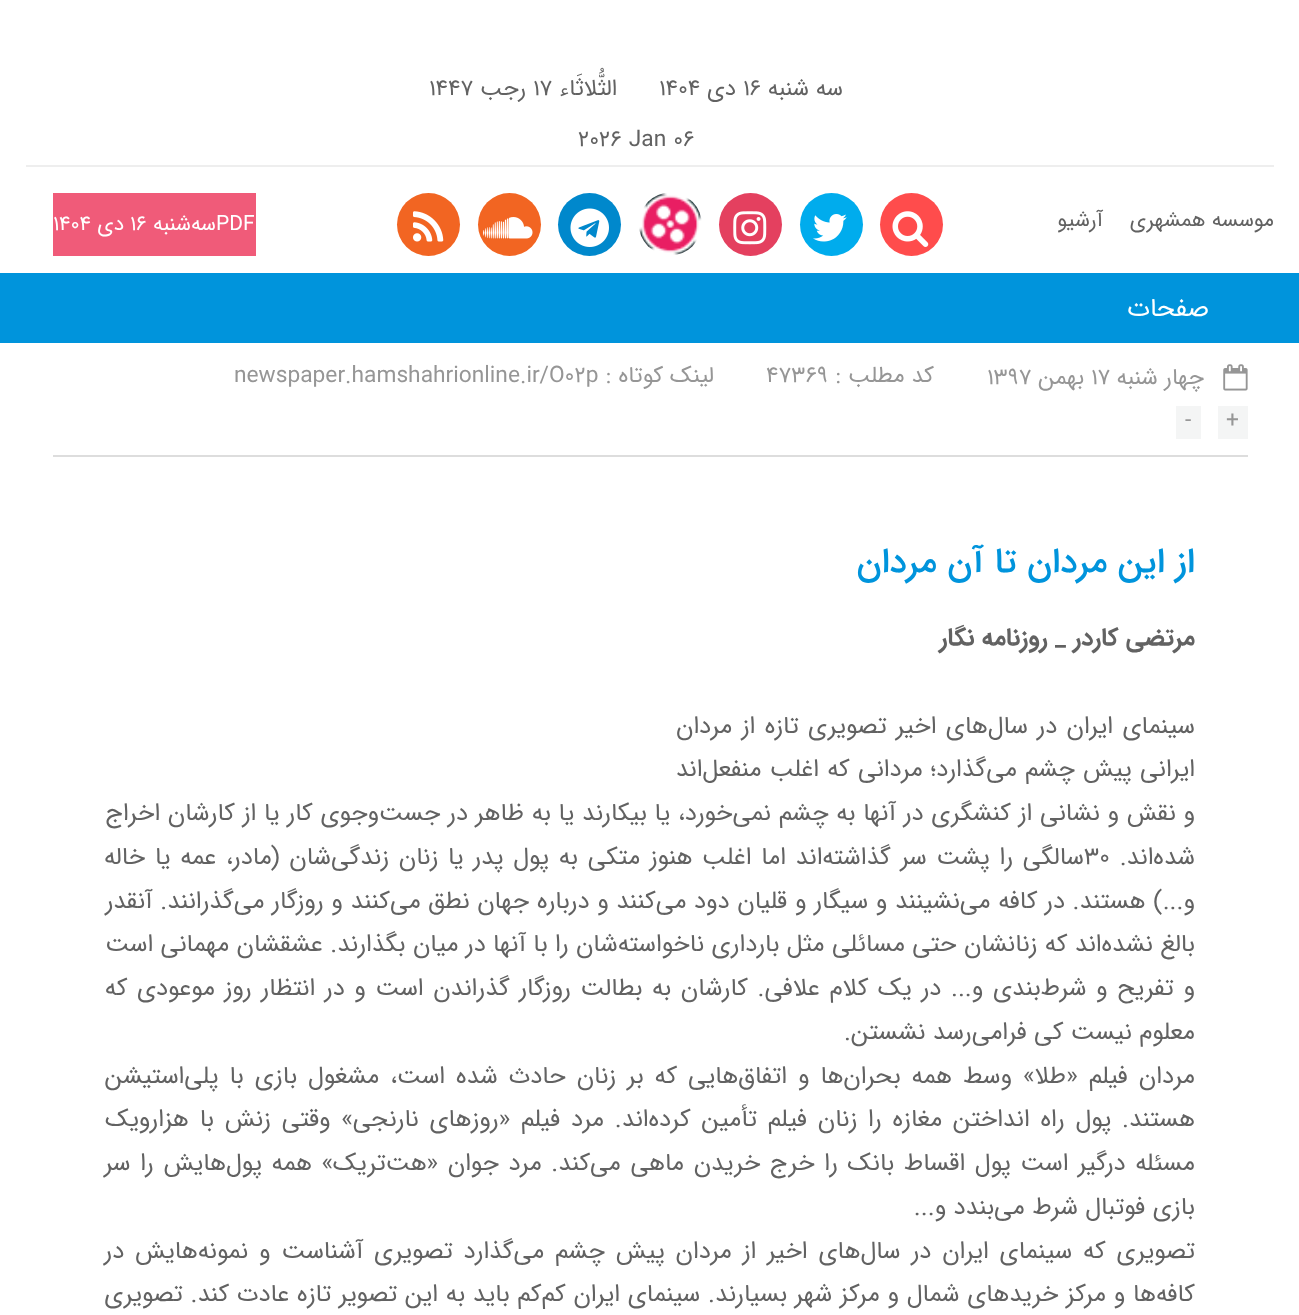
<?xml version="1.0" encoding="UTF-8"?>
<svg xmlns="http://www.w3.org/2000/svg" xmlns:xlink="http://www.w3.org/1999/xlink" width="1299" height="1315">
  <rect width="100%" height="100%" fill="#ffffff" />
  <rect x="26" y="165" width="1248" height="2" fill="#eeeeee" />
  <circle cx="911.5" cy="224.5" r="31.5" fill="#ff4c4c" />
  <image x="892" y="211" width="37" height="36" xlink:href="image1.png" />
  <circle cx="831.5" cy="224.5" r="31.5" fill="#00aced" />
  <image x="813" y="214" width="34" height="28" xlink:href="image2.png" />
  <circle cx="750.5" cy="224.5" r="31.5" fill="#e4405f" />
  <image x="733" y="211" width="34" height="34" xlink:href="image3.png" />
  <image x="639" y="193" width="63" height="62" xlink:href="image4.png" />
  <circle cx="589.5" cy="224.5" r="31.5" fill="#0088cc" />
  <image x="570" y="208" width="39" height="39" xlink:href="image5.png" />
  <circle cx="509.5" cy="224.5" r="31.5" fill="#f26522" />
  <image x="483" y="217" width="50" height="22" xlink:href="image6.png" />
  <circle cx="428.5" cy="224.5" r="31.5" fill="#f26522" />
  <image x="413" y="211" width="31" height="31" xlink:href="image7.png" />
  <rect x="53" y="193" width="203" height="63" fill="#f05b79" />
  <rect y="273" width="1299" height="70" fill="#0094dc" />
  <rect x="53" y="455" width="1195" height="2" fill="#dddddd" />
  <image x="1223" y="364" width="25" height="27" xlink:href="image8.png" />
  <rect x="1218" y="406" width="30" height="33" fill="#f4f5f5" />
  <rect x="1176" y="406" width="25" height="33" fill="#f4f5f5" />
  <text x="843" y="95" style="font-family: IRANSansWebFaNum; font-size: 22.75px; direction: rtl; fill: #626262">سه شنبه</text>
  <text x="743" y="95" style="font-family: IRANSansWebFaNum; font-size: 22.75px; fill: #626262">16</text>
  <text x="736" y="95" style="font-family: IRANSansWebFaNum; font-size: 22.75px; direction: rtl; fill: #626262">دی</text>
  <text x="659" y="95" style="font-family: IRANSansWebFaNum; font-size: 22.75px; fill: #626262">1404</text>
  <text x="617" y="95" style="font-family: IRANSansWebFaNum; font-size: 22.75px; direction: rtl; fill: #626262">الثُّلاثَاء</text>
  <text x="533" y="95" style="font-family: IRANSansWebFaNum; font-size: 22.75px; fill: #626262">17</text>
  <text x="526" y="95" style="font-family: IRANSansWebFaNum; font-size: 22.75px; direction: rtl; fill: #626262">رجب</text>
  <text x="429" y="95" style="font-family: IRANSansWebFaNum; font-size: 22.75px; fill: #626262">1447</text>
  <text x="578" y="146" style="font-family: IRANSansWebFaNum; font-size: 22.75px; fill: #626262">2026 Jan 06</text>
  <text x="1274" y="226" style="font-family: IRANSansWebFaNum; font-size: 21px; direction: rtl; fill: #626262">موسسه همشهری</text>
  <text x="1103" y="226" style="font-family: IRANSansWebFaNum; font-size: 21px; direction: rtl; fill: #626262">آرشیو</text>
  <text x="216" y="230" style="font-family: IRANSansWebFaNum; font-size: 21px; fill: #ffffff">PDF</text>
  <text x="216" y="230" style="font-family: IRANSansWebFaNum; font-size: 21px; direction: rtl; fill: #ffffff">سه‌شنبه</text>
  <text x="130" y="230" style="font-family: IRANSansWebFaNum; font-size: 21px; fill: #ffffff">16</text>
  <text x="124" y="230" style="font-family: IRANSansWebFaNum; font-size: 21px; direction: rtl; fill: #ffffff">دی</text>
  <text x="53" y="230" style="font-family: IRANSansWebFaNum; font-size: 21px; fill: #ffffff">1404</text>
  <text x="1209" y="316" style="font-family: IRANSansWebFaNum; font-size: 26px; direction: rtl; fill: #ffffff">صفحات</text>
  <text x="1204" y="384" style="font-family: IRANSansWebFaNum; font-size: 22.75px; direction: rtl; fill: #969696">چهار شنبه</text>
  <text x="1091" y="384" style="font-family: IRANSansWebFaNum; font-size: 22.75px; fill: #969696">17</text>
  <text x="1084" y="384" style="font-family: IRANSansWebFaNum; font-size: 22.75px; direction: rtl; fill: #969696">بهمن</text>
  <text x="987" y="384" style="font-family: IRANSansWebFaNum; font-size: 22.75px; fill: #969696">1397</text>
  <text x="934" y="382" style="font-family: IRANSansWebFaNum; font-size: 22.75px; direction: rtl; fill: #969696">کد مطلب :</text>
  <text x="766" y="382" style="font-family: IRANSansWebFaNum; font-size: 22.75px; fill: #969696">47369</text>
  <text x="714" y="382" style="font-family: IRANSansWebFaNum; font-size: 22.75px; direction: rtl; fill: #969696">لینک کوتاه :</text>
  <text x="234" y="382" style="font-family: IRANSansWebFaNum; font-size: 22.75px; fill: #969696">newspaper.hamshahrionline.ir/O02p</text>
  <text x="1226" y="427" style="font-family: IRANSansWebFaNum; font-size: 22.75px; fill: #969696">+</text>
  <text x="1185" y="427" style="font-family: IRANSansWebFaNum; font-size: 22.75px; fill: #969696">-</text>
  <text x="1195" y="572" style="font-family: IRANSansWebFaNum; font-size: 35px; font-weight: 500; direction: rtl; fill: #0094dc">از این مردان تا آن مردان</text>
  <text x="1195" y="645" style="font-family: IRANSansWebFaNum; font-size: 24.5px; font-weight: bold; direction: rtl; fill: #626262">مرتضی کاردر _ روزنامه نگار</text>
  <text x="1195" y="733" word-spacing="2" style="font-family: IRANSansWebFaNum; font-size: 24.5px; direction: rtl; fill: #626262">سینمای ایران در سال‌های اخیر تصویری تازه از مردان</text>
  <text x="1195" y="776" word-spacing="0.75" style="font-family: IRANSansWebFaNum; font-size: 24.5px; direction: rtl; fill: #626262">ایرانی پیش چشم می‌گذارد؛ مردانی که اغلب منفعل‌اند</text>
  <text x="1195" y="820" word-spacing="0.3" style="font-family: IRANSansWebFaNum; font-size: 24.5px; direction: rtl; fill: #626262">و نقش و نشانی از کنشگری در آنها به چشم نمی‌خورد، یا بیکارند یا به ظاهر در جست‌و‌جوی کار یا از کارشان اخراج</text>
  <text x="1195" y="864" style="font-family: IRANSansWebFaNum; font-size: 24.5px; direction: rtl; fill: #626262">شده‌اند.</text>
  <text x="1084" y="864" style="font-family: IRANSansWebFaNum; font-size: 24.5px; fill: #626262">30</text>
  <text x="1084" y="864" word-spacing="2.25" style="font-family: IRANSansWebFaNum; font-size: 24.5px; direction: rtl; fill: #626262">سالگی را پشت سر گذاشته‌اند اما اغلب هنوز متکی به پول پدر یا زنان زندگی‌شان (مادر، عمه یا خاله</text>
  <text x="1195" y="908" word-spacing="0.3" style="font-family: IRANSansWebFaNum; font-size: 24.5px; direction: rtl; fill: #626262">و...) هستند. در کافه می‌نشینند و سیگار و قلیان دود می‌کنند و درباره جهان نطق می‌کنند و روزگار می‌گذرانند. آنقدر</text>
  <text x="1195" y="951" style="font-family: IRANSansWebFaNum; font-size: 24.5px; direction: rtl; fill: #626262">بالغ نشده‌اند که زنانشان حتی مسائلی مثل بارداری ناخواسته‌شان را با آنها در میان بگذارند. عشقشان مهمانی است</text>
  <text x="1195" y="995" word-spacing="2.25" style="font-family: IRANSansWebFaNum; font-size: 24.5px; direction: rtl; fill: #626262">و تفریح و شرط‌بندی و... در یک کلام علافی. کارشان به بطالت روزگار گذراندن است و در انتظار روز موعودی که</text>
  <text x="1195" y="1039" style="font-family: IRANSansWebFaNum; font-size: 24.5px; direction: rtl; fill: #626262">معلوم نیست کی فرامی‌رسد نشستن.</text>
  <text x="1195" y="1083" word-spacing="3.6" style="font-family: IRANSansWebFaNum; font-size: 24.5px; direction: rtl; fill: #626262">مردان فیلم «طلا» وسط همه بحران‌ها و اتفاق‌هایی که بر زنان حادث شده است، مشغول بازی با پلی‌استیشن</text>
  <text x="1195" y="1126" word-spacing="3.4" style="font-family: IRANSansWebFaNum; font-size: 24.5px; direction: rtl; fill: #626262">هستند. پول راه انداختن مغازه را زنان فیلم تأمین کرده‌اند. مرد فیلم «روزهای نارنجی» وقتی زنش با هزارویک</text>
  <text x="1195" y="1170" word-spacing="2.25" style="font-family: IRANSansWebFaNum; font-size: 24.5px; direction: rtl; fill: #626262">مسئله درگیر است پول اقساط بانک را خرج خریدن ماهی می‌کند. مرد جوان «هت‌تریک» همه پول‌هایش را سر</text>
  <text x="1195" y="1214" style="font-family: IRANSansWebFaNum; font-size: 24.5px; direction: rtl; fill: #626262">بازی فوتبال شرط می‌بندد و...</text>
  <text x="1195" y="1258" word-spacing="3.5" style="font-family: IRANSansWebFaNum; font-size: 24.5px; direction: rtl; fill: #626262">تصویری که سینمای ایران در سال‌های اخیر از مردان پیش چشم می‌گذارد تصویری آشناست و نمونه‌هایش در</text>
  <text x="1195" y="1301" word-spacing="0.4" style="font-family: IRANSansWebFaNum; font-size: 24.5px; direction: rtl; fill: #626262">کافه‌ها و مرکز خریدهای شمال و مرکز شهر بسیارند. سینمای ایران کم‌کم باید به این تصویر تازه عادت کند. تصویری</text>
</svg>
